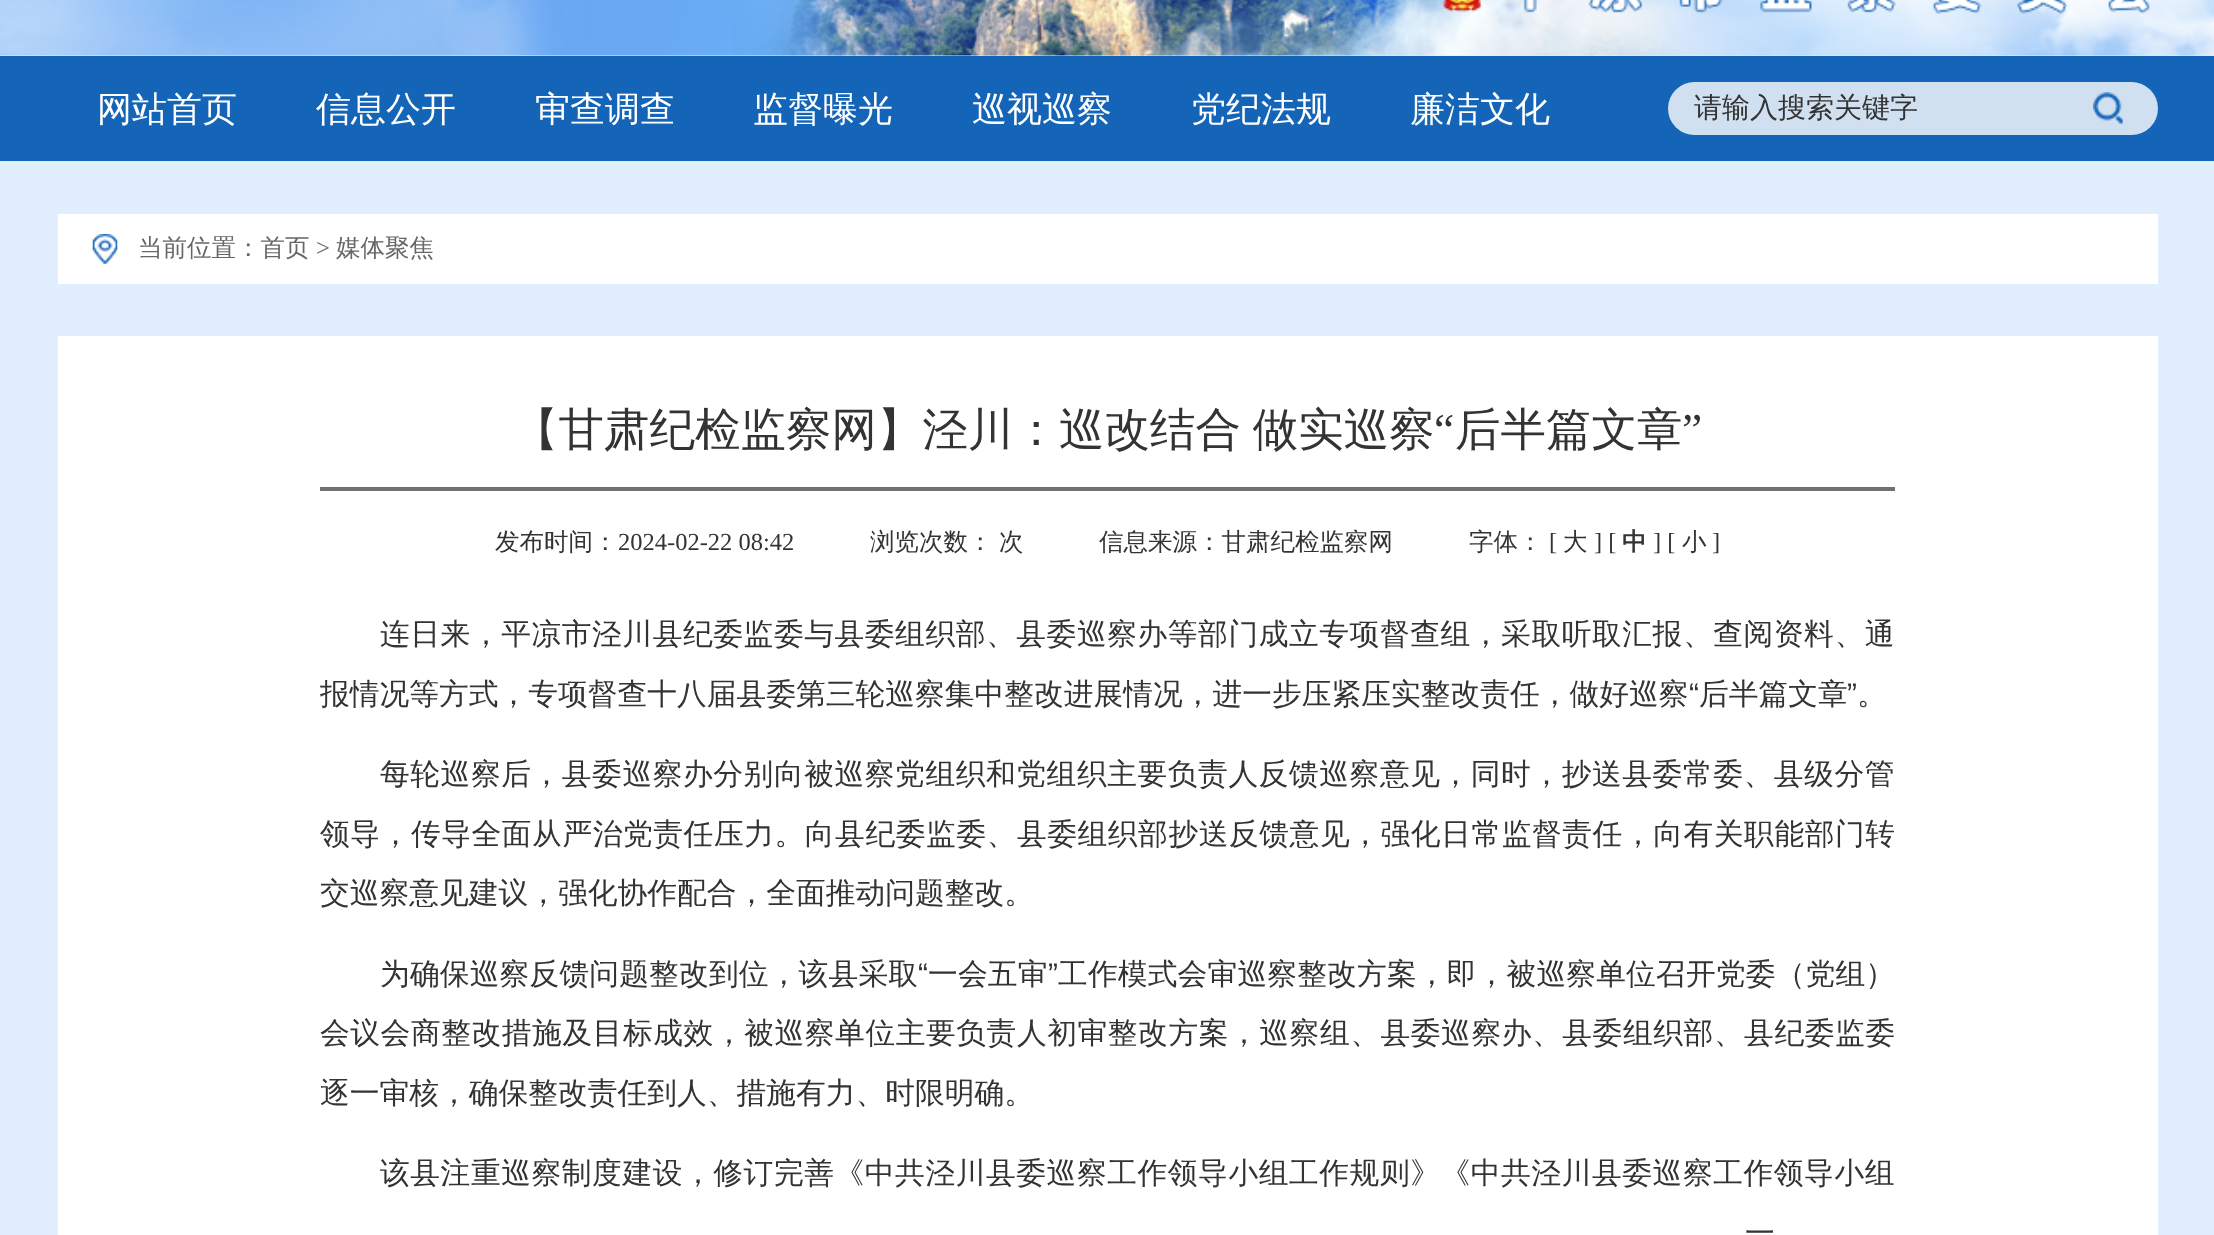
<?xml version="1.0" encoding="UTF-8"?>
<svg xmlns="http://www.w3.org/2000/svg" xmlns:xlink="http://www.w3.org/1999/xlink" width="2214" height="1235">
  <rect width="100%" height="100%" fill="#e1eefe" />
  <image x="0" y="0" width="2214" height="56" xlink:href="image1.png" />
  <image x="1443" y="0" width="707" height="14" xlink:href="image2.png" />
  <rect y="56" width="2214" height="105" fill="#1465b7" />
  <rect x="1668" y="82" width="490" height="53" rx="26.5" fill="#d0e0f1" />
  <image x="2093" y="92" width="30" height="32" xlink:href="image3.png" />
  <rect x="58" y="214" width="2100" height="70" fill="#ffffff" />
  <image x="92" y="234" width="26" height="30" xlink:href="image4.png" />
  <rect x="58" y="336" width="2100" height="899" fill="#ffffff" />
  <rect x="320" y="487" width="1575" height="4" fill="#717171" />
  <text x="97" y="121" style="font-family: WenQuanYi Zen Hei; font-size: 35px; font-weight: 500; fill: #ffffff">网站首页</text>
  <text x="316" y="121" style="font-family: WenQuanYi Zen Hei; font-size: 35px; font-weight: 500; fill: #ffffff">信息公开</text>
  <text x="535" y="121" style="font-family: WenQuanYi Zen Hei; font-size: 35px; font-weight: 500; fill: #ffffff">审查调查</text>
  <text x="753" y="121" style="font-family: WenQuanYi Zen Hei; font-size: 35px; font-weight: 500; fill: #ffffff">监督曝光</text>
  <text x="972" y="121" style="font-family: WenQuanYi Zen Hei; font-size: 35px; font-weight: 500; fill: #ffffff">巡视巡察</text>
  <text x="1191" y="121" style="font-family: WenQuanYi Zen Hei; font-size: 35px; font-weight: 500; fill: #ffffff">党纪法规</text>
  <text x="1410" y="121" style="font-family: WenQuanYi Zen Hei; font-size: 35px; font-weight: 500; fill: #ffffff">廉洁文化</text>
  <text x="1694" y="117" style="font-family: WenQuanYi Zen Hei; font-size: 28px; font-weight: 500; fill: #333333">请输入搜索关键字</text>
  <text x="138" y="256" style="font-family: WenQuanYi Zen Hei; font-size: 24.5px; font-weight: 500; fill: #666666">当前位置：首页</text>
  <text x="316" y="256" style="font-family: Liberation Serif; font-size: 24.5px; fill: #666666">&gt;</text>
  <text x="336" y="256" style="font-family: WenQuanYi Zen Hei; font-size: 24.5px; font-weight: 500; fill: #666666">媒体聚焦</text>
  <text x="513" y="445" word-spacing="-2" style="font-family: WenQuanYi Zen Hei; font-size: 45.5px; font-weight: 500; fill: #333333">【甘肃纪检监察网】泾川：巡改结合 做实巡察</text>
  <text x="1434" y="445" style="font-family: Liberation Serif; font-size: 45.5px; fill: #333333">“</text>
  <text x="1455" y="445" style="font-family: WenQuanYi Zen Hei; font-size: 45.5px; font-weight: 500; fill: #333333">后半篇文章</text>
  <text x="1682" y="445" style="font-family: Liberation Serif; font-size: 45.5px; fill: #333333">”</text>
  <text x="495" y="550" style="font-family: WenQuanYi Zen Hei; font-size: 24.5px; font-weight: 500; fill: #333333">发布时间：</text>
  <text x="618" y="550" style="font-family: Liberation Serif; font-size: 24.5px; fill: #333333">2024-02-22 08:42</text>
  <text x="870" y="550" style="font-family: WenQuanYi Zen Hei; font-size: 24.5px; font-weight: 500; fill: #333333">浏览次数：</text>
  <text x="999" y="550" style="font-family: WenQuanYi Zen Hei; font-size: 24.5px; font-weight: 500; fill: #333333">次</text>
  <text x="1099" y="550" style="font-family: WenQuanYi Zen Hei; font-size: 24.5px; font-weight: 500; fill: #333333">信息来源：甘肃纪检监察网</text>
  <text x="1469" y="550" style="font-family: WenQuanYi Zen Hei; font-size: 24.5px; font-weight: 500; fill: #333333">字体：</text>
  <text x="1549" y="550" style="font-family: Liberation Serif; font-size: 24.5px; fill: #333333">[</text>
  <text x="1563" y="550" style="font-family: WenQuanYi Zen Hei; font-size: 24.5px; font-weight: 500; fill: #333333">大</text>
  <text x="1594" y="550" style="font-family: Liberation Serif; font-size: 24.5px; fill: #333333">] [</text>
  <text x="1622" y="550" style="font-family: WenQuanYi Zen Hei; font-size: 24.5px; font-weight: bold; fill: #333333">中</text>
  <text x="1653" y="550" style="font-family: Liberation Serif; font-size: 24.5px; fill: #333333">] [</text>
  <text x="1682" y="550" style="font-family: WenQuanYi Zen Hei; font-size: 24.5px; font-weight: 500; fill: #333333">小</text>
  <text x="1712" y="550" style="font-family: Liberation Serif; font-size: 24.5px; fill: #333333">]</text>
  <text x="380" y="644" style="font-family: WenQuanYi Zen Hei; font-size: 29.75px; font-weight: 500; letter-spacing: 0.55px; fill: #333333">连日来，平凉市泾川县纪委监委与县委组织部、县委巡察办等部门成立专项督查组，采取听取汇报、查阅资料、通</text>
  <text x="320" y="704" style="font-family: WenQuanYi Zen Hei; font-size: 29.75px; font-weight: 500; fill: #333333">报情况等方式，专项督查十八届县委第三轮巡察集中整改进展情况，进一步压紧压实整改责任，做好巡察</text>
  <text x="1689" y="704" style="font-family: Liberation Sans; font-size: 29.75px; fill: #333333">“</text>
  <text x="1699" y="704" style="font-family: WenQuanYi Zen Hei; font-size: 29.75px; font-weight: 500; fill: #333333">后半篇文章</text>
  <text x="1847" y="704" style="font-family: Liberation Sans; font-size: 29.75px; fill: #333333">”</text>
  <text x="1857" y="704" style="font-family: WenQuanYi Zen Hei; font-size: 29.75px; font-weight: 500; fill: #333333">。</text>
  <text x="380" y="784" style="font-family: WenQuanYi Zen Hei; font-size: 29.75px; font-weight: 500; letter-spacing: 0.55px; fill: #333333">每轮巡察后，县委巡察办分别向被巡察党组织和党组织主要负责人反馈巡察意见，同时，抄送县委常委、县级分管</text>
  <text x="320" y="844" style="font-family: WenQuanYi Zen Hei; font-size: 29.75px; font-weight: 500; letter-spacing: 0.55px; fill: #333333">领导，传导全面从严治党责任压力。向县纪委监委、县委组织部抄送反馈意见，强化日常监督责任，向有关职能部门转</text>
  <text x="320" y="903" style="font-family: WenQuanYi Zen Hei; font-size: 29.75px; font-weight: 500; fill: #333333">交巡察意见建议，强化协作配合，全面推动问题整改。</text>
  <text x="380" y="984" style="font-family: WenQuanYi Zen Hei; font-size: 29.75px; font-weight: 500; letter-spacing: 0.15px; fill: #333333">为确保巡察反馈问题整改到位，该县采取</text>
  <text x="918" y="984" style="font-family: Liberation Sans; font-size: 29.75px; letter-spacing: 0.15px; fill: #333333">“</text>
  <text x="928" y="984" style="font-family: WenQuanYi Zen Hei; font-size: 29.75px; font-weight: 500; letter-spacing: 0.15px; fill: #333333">一会五审</text>
  <text x="1048" y="984" style="font-family: Liberation Sans; font-size: 29.75px; letter-spacing: 0.15px; fill: #333333">”</text>
  <text x="1058" y="984" style="font-family: WenQuanYi Zen Hei; font-size: 29.75px; font-weight: 500; letter-spacing: 0.15px; fill: #333333">工作模式会审巡察整改方案，即，被巡察单位召开党委（党组）</text>
  <text x="320" y="1043" style="font-family: WenQuanYi Zen Hei; font-size: 29.75px; font-weight: 500; letter-spacing: 0.55px; fill: #333333">会议会商整改措施及目标成效，被巡察单位主要负责人初审整改方案，巡察组、县委巡察办、县委组织部、县纪委监委</text>
  <text x="320" y="1103" style="font-family: WenQuanYi Zen Hei; font-size: 29.75px; font-weight: 500; fill: #333333">逐一审核，确保整改责任到人、措施有力、时限明确。</text>
  <text x="380" y="1183" style="font-family: WenQuanYi Zen Hei; font-size: 29.75px; font-weight: 500; letter-spacing: 0.55px; fill: #333333">该县注重巡察制度建设，修订完善《中共泾川县委巡察工作领导小组工作规则》《中共泾川县委巡察工作领导小组</text>
  <text x="1745" y="1243" style="font-family: WenQuanYi Zen Hei; font-size: 29.75px; font-weight: 500; fill: #333333">一</text>
</svg>
